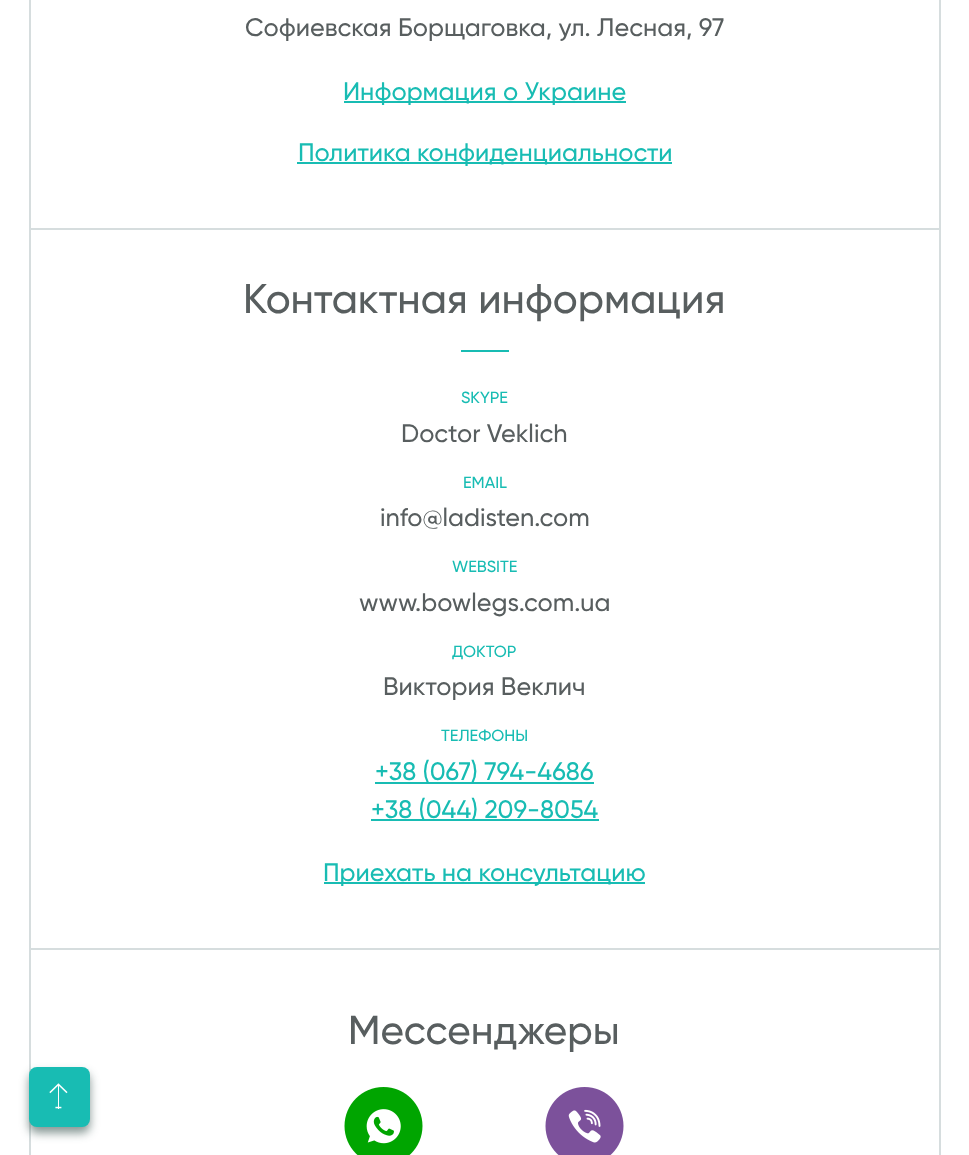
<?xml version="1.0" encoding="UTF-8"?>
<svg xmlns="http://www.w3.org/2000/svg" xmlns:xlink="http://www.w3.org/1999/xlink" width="969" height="1155">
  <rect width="100%" height="100%" fill="#ffffff" />
  <rect x="30" y="-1" width="910" height="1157" fill="none" stroke="#d6ddde" stroke-width="2" />
  <rect x="30" y="228" width="909" height="2" fill="#d6ddde" />
  <rect x="344" y="101" width="282" height="2" fill="#18bcb3" />
  <rect x="297" y="162" width="375" height="2" fill="#18bcb3" />
  <rect x="461" y="350" width="48" height="2" fill="#18bcb3" />
  <rect x="375" y="782" width="219" height="2" fill="#18bcb3" />
  <rect x="371" y="819" width="228" height="2" fill="#18bcb3" />
  <rect x="324" y="882" width="321" height="2" fill="#18bcb3" />
  <rect x="30" y="948" width="909" height="2" fill="#d6ddde" />
  <image x="344" y="1087" width="79" height="68" xlink:href="image1.png" />
  <image x="545" y="1087" width="79" height="68" xlink:href="image2.png" />
  <rect x="29" y="1073" width="61" height="60" rx="8" fill="#0d2f2a" fill-opacity="0.5" filter="blur(5px)" />
  <rect x="29" y="1067" width="61" height="60" rx="8" fill="#18bcb3" />
  <image x="49" y="1083" width="19" height="26" xlink:href="image3.png" />
  <text x="245" y="36" style="font-family: Gilroy; font-size: 25.25px; font-weight: 500; fill: #585e5f">Софиевская Борщаговка, ул. Лесная, 97</text>
  <text x="343" y="100" style="font-family: Gilroy; font-size: 25.25px; font-weight: 500; fill: #18bcb3">Информация о Украине</text>
  <text x="298" y="161" style="font-family: Gilroy; font-size: 25.25px; font-weight: 500; fill: #18bcb3">Политика конфиденциальности</text>
  <text x="243" y="313" style="font-family: Gilroy; font-size: 41.4px; font-weight: 500; fill: #585e5f">Контактная информация</text>
  <text x="461" y="403" style="font-family: Gilroy; font-size: 16.25px; font-weight: 500; fill: #18bcb3">SKYPE</text>
  <text x="401" y="442" style="font-family: Gilroy; font-size: 25.25px; font-weight: 500; fill: #585e5f">Doctor Veklich</text>
  <text x="463" y="488" style="font-family: Gilroy; font-size: 16.25px; font-weight: 500; fill: #18bcb3">EMAIL</text>
  <text x="380" y="526" style="font-family: Gilroy; font-size: 25.25px; font-weight: 500; fill: #585e5f">info@ladisten.com</text>
  <text x="452" y="572" style="font-family: Gilroy; font-size: 16.25px; font-weight: 500; fill: #18bcb3">WEBSITE</text>
  <text x="359" y="611" style="font-family: Gilroy; font-size: 25.25px; font-weight: 500; fill: #585e5f">www.bowlegs.com.ua</text>
  <text x="452" y="657" style="font-family: Gilroy; font-size: 16.25px; font-weight: 500; fill: #18bcb3">ДОКТОР</text>
  <text x="383" y="695" style="font-family: Gilroy; font-size: 25.25px; font-weight: 500; fill: #585e5f">Виктория Веклич</text>
  <text x="441" y="741" style="font-family: Gilroy; font-size: 16.25px; font-weight: 500; fill: #18bcb3">ТЕЛЕФОНЫ</text>
  <text x="375" y="780" style="font-family: Gilroy; font-size: 25.25px; font-weight: 500; fill: #18bcb3">+38 (067) 794-4686</text>
  <text x="371" y="818" style="font-family: Gilroy; font-size: 25.25px; font-weight: 500; fill: #18bcb3">+38 (044) 209-8054</text>
  <text x="323" y="881" style="font-family: Gilroy; font-size: 25.25px; font-weight: 500; fill: #18bcb3">Приехать на консультацию</text>
  <text x="348" y="1044" style="font-family: Gilroy; font-size: 40.25px; font-weight: 500; fill: #585e5f">Мессенджеры</text>
</svg>
